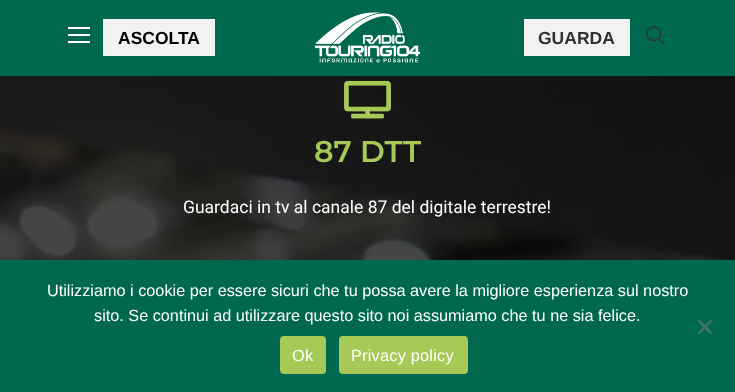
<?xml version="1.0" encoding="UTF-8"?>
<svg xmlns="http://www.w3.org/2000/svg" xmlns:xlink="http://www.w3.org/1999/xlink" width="735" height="392">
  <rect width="100%" height="100%" fill="#ffffff" />
  <rect width="735" height="76" fill="#00684e" />
  <rect x="68" y="27" width="22" height="2" fill="#ffffff" />
  <rect x="68" y="34" width="22" height="2" fill="#ffffff" />
  <rect x="68" y="41" width="22" height="2" fill="#ffffff" />
  <rect x="103" y="19" width="112" height="37" fill="#f2f2f2" />
  <image x="315" y="12" width="105" height="51" xlink:href="image1.png" />
  <rect x="524" y="19" width="106" height="37" fill="#f2f2f2" />
  <image x="646" y="26" width="18" height="18" xlink:href="image2.png" />
  <image x="0" y="76" width="735" height="184" xlink:href="image3.png" />
  <image x="344" y="80" width="47" height="39" xlink:href="image4.png" />
  <rect y="260" width="735" height="132" fill="#00684e" />
  <path d="M 710.5 319.5 l 2 1.5 l -13 13.5 l -2 -2 z" fill="#407467" />
  <path d="M 697.5 321 l 2 -1.5 l 13 13 l -2 2 z" fill="#407467" />
  <rect x="280" y="336" width="46" height="38" rx="4" fill="#a6ca56" />
  <rect x="339" y="336" width="129" height="38" rx="4" fill="#a6ca56" />
  <text x="118" y="44" style="font-family: Liberation Sans; font-size: 17.5px; font-weight: bold; fill: #000000">ASCOLTA</text>
  <text x="538" y="44" style="font-family: Liberation Sans; font-size: 17.5px; font-weight: bold; fill: #313131">GUARDA</text>
  <text x="314" y="162" style="font-family: Montserrat; font-size: 30px; font-weight: 600; fill: #a6ca56">87 DTT</text>
  <text x="183" y="213" style="font-family: Roboto; font-size: 17.5px; fill: #ffffff">Guardaci in tv al canale 87 del digitale terrestre!</text>
  <text x="47" y="296" style="font-family: Liberation Sans; font-size: 16.25px; fill: #ffffff">Utilizziamo i cookie per essere sicuri che tu possa avere la migliore esperienza sul nostro</text>
  <text x="94" y="321" style="font-family: Liberation Sans; font-size: 16.25px; fill: #ffffff">sito. Se continui ad utilizzare questo sito noi assumiamo che tu ne sia felice.</text>
  <text x="292" y="361" style="font-family: Liberation Sans; font-size: 16.25px; letter-spacing: 0.25px; fill: #ffffff">Ok</text>
  <text x="351" y="361" style="font-family: Liberation Sans; font-size: 16.25px; letter-spacing: 0.25px; fill: #ffffff">Privacy policy</text>
</svg>
